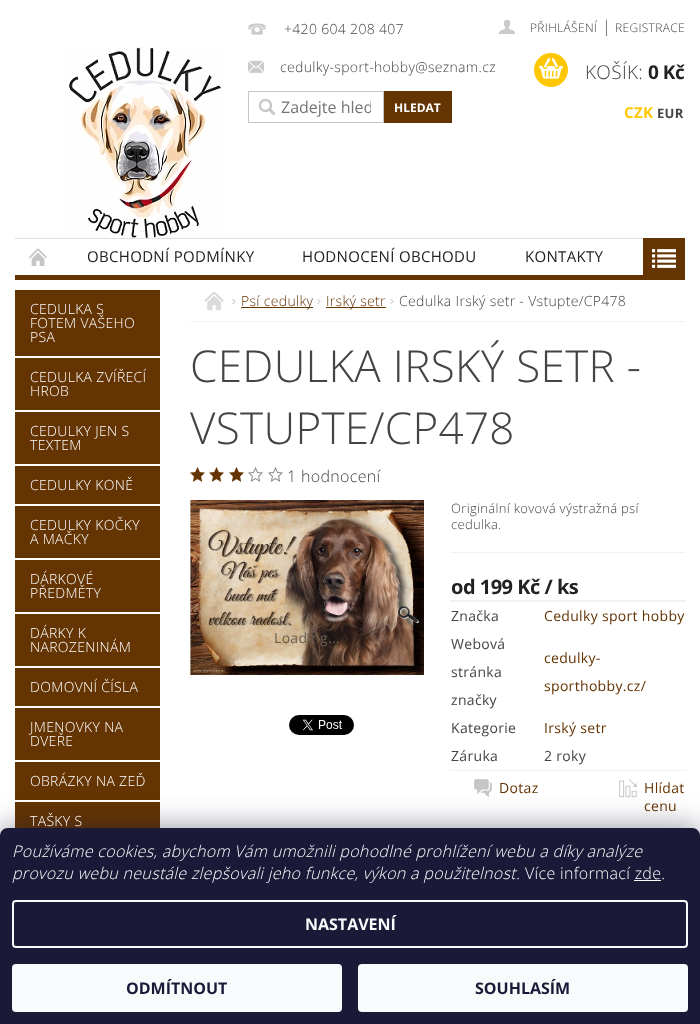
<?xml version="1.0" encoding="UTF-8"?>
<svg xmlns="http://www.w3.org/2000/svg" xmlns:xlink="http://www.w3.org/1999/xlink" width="700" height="1024">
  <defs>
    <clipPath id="clip1"><rect x="281" y="96" width="90" height="22" /></clipPath>
  </defs>
  <rect width="100%" height="100%" fill="#ffffff" />
  <rect x="15" y="275" width="628" height="5" fill="#643403" />
  <image x="67" y="47" width="154" height="191" xlink:href="image1.png" />
  <image x="248" y="23" width="18" height="12" xlink:href="image2.png" />
  <image x="248" y="60" width="16" height="13" xlink:href="image3.png" />
  <image x="259" y="99" width="16" height="16" xlink:href="image4.png" />
  <rect x="248.5" y="91.5" width="135" height="31" fill="none" stroke="#c6c6c6" />
  <rect x="384" y="91" width="68" height="32" fill="#643403" />
  <image x="499" y="19" width="16" height="15" xlink:href="image5.png" />
  <circle cx="551" cy="70" r="17" fill="#ffc702" />
  <image x="539" y="58" width="24" height="21" xlink:href="image6.png" />
  <rect x="15" y="238" width="628" height="1" fill="#e0e0e0" />
  <image x="29" y="248" width="18" height="18" xlink:href="image7.png" />
  <rect x="643" y="238" width="42" height="42" fill="#643403" />
  <image x="652" y="249" width="24" height="19" xlink:href="image8.png" />
  <rect x="15" y="290" width="145" height="66" fill="#643403" />
  <rect x="15" y="358" width="145" height="52" fill="#643403" />
  <rect x="15" y="412" width="145" height="52" fill="#643403" />
  <rect x="15" y="466" width="145" height="38" fill="#643403" />
  <rect x="15" y="506" width="145" height="52" fill="#643403" />
  <rect x="15" y="560" width="145" height="52" fill="#643403" />
  <rect x="15" y="614" width="145" height="52" fill="#643403" />
  <rect x="15" y="668" width="145" height="38" fill="#643403" />
  <rect x="15" y="708" width="145" height="52" fill="#643403" />
  <rect x="15" y="762" width="145" height="38" fill="#643403" />
  <rect x="15" y="802" width="145" height="26" fill="#643403" />
  <rect x="190" y="321" width="495" height="1" fill="#f2f2f2" />
  <image x="204" y="292" width="20" height="19" xlink:href="image9.png" />
  <image x="232" y="299" width="4" height="5" xlink:href="image10.png" />
  <rect x="241" y="307" width="72" height="1" fill="#643403" />
  <image x="317" y="299" width="4" height="5" xlink:href="image10.png" />
  <rect x="326" y="307" width="60" height="1" fill="#643403" />
  <image x="390" y="299" width="4" height="5" xlink:href="image10.png" />
  <image x="190" y="467" width="15" height="15" xlink:href="image11.png" />
  <image x="209" y="467" width="15" height="15" xlink:href="image11.png" />
  <image x="229" y="467" width="15" height="15" xlink:href="image11.png" />
  <image x="248" y="467" width="15" height="15" xlink:href="image12.png" />
  <image x="268" y="467" width="15" height="15" xlink:href="image12.png" />
  <image x="190" y="500" width="234" height="175" xlink:href="image14.png" />
  <image x="398" y="606" width="21" height="18" xlink:href="image13.png" />
  <image x="289" y="715" width="65" height="20" xlink:href="image15.png" />
  <rect x="451" y="552" width="234" height="1" fill="#f2f2f2" />
  <rect x="450" y="600" width="236" height="2" fill="#f2f2f2" />
  <rect x="450" y="770" width="236" height="1" fill="#f2f2f2" />
  <image x="474" y="779" width="18" height="19" xlink:href="image16.png" />
  <image x="619" y="779" width="18" height="19" xlink:href="image17.png" />
  <rect y="828" width="700" height="196" rx="8" fill="#1b1939" fill-opacity="0.5" filter="blur(15px)" />
  <path d="M 8 828 h 684 c 4.5 0 8 3.5 8 8 v 188 h -700 v -188 c 0 -4.5 3.5 -8 8 -8 z" fill="#1a1937" />
  <rect x="634" y="880" width="27" height="1" fill="#f8fafb" />
  <rect x="13" y="901" width="674" height="46" rx="3" fill="none" stroke="#f8fafb" stroke-width="2" />
  <rect x="12" y="964" width="330" height="48" rx="4" fill="#f8fafb" />
  <rect x="358" y="964" width="330" height="48" rx="4" fill="#f8fafb" />
  <text x="284" y="34" style="font-family: Open Sans; font-size: 14px; font-weight: 300; letter-spacing: 0.32px; fill: #444444">+420 604 208 407</text>
  <text x="280" y="72" style="font-family: Open Sans; font-size: 14px; font-weight: 300; letter-spacing: 0.32px; fill: #444444">cedulky-sport-hobby@seznam.cz</text>
  <g clip-path="url(#clip1)">
    <text x="281" y="113" style="font-family: Open Sans; font-size: 16px; fill: #757575">Zadejte hled</text>
  </g>
  <text x="394" y="112" style="font-family: Open Sans; font-size: 12px; font-weight: bold; fill: #ffffff">HLEDAT</text>
  <text x="530" y="32" style="font-family: Open Sans; font-size: 12px; font-weight: 300; letter-spacing: 0.32px; fill: #444444">PŘIHLÁŠENÍ</text>
  <text x="602" y="32" style="font-family: Open Sans; font-size: 16px; font-weight: 300; letter-spacing: 0.32px; fill: #444444">|</text>
  <text x="615" y="32" style="font-family: Open Sans; font-size: 12px; font-weight: 300; letter-spacing: 0.32px; fill: #444444">REGISTRACE</text>
  <text x="585" y="79" style="font-family: Open Sans; font-size: 19px; font-weight: 300; letter-spacing: 0.32px; fill: #444444">KOŠÍK:</text>
  <text x="648" y="79" style="font-family: Open Sans; font-size: 19px; font-weight: bold; letter-spacing: -0.5px; fill: #222222">0 Kč</text>
  <text x="624" y="118" style="font-family: Open Sans; font-size: 15px; font-weight: bold; letter-spacing: 0.32px; fill: #ffc702">CZK</text>
  <text x="657" y="118" style="font-family: Open Sans; font-size: 13px; font-weight: bold; letter-spacing: 0.32px; fill: #444444">EUR</text>
  <text x="87" y="262" style="font-family: Open Sans; font-size: 15px; letter-spacing: 0.32px; fill: #222222">OBCHODNÍ PODMÍNKY</text>
  <text x="302" y="262" style="font-family: Open Sans; font-size: 15px; letter-spacing: 0.32px; fill: #222222">HODNOCENÍ OBCHODU</text>
  <text x="525" y="262" style="font-family: Open Sans; font-size: 15px; letter-spacing: 0.32px; fill: #222222">KONTAKTY</text>
  <text x="30" y="314" style="font-family: Open Sans; font-size: 14px; font-weight: 300; letter-spacing: 0.32px; fill: #ffffff">CEDULKA S</text>
  <text x="30" y="328" style="font-family: Open Sans; font-size: 14px; font-weight: 300; letter-spacing: 0.32px; fill: #ffffff">FOTEM VAŠEHO</text>
  <text x="30" y="342" style="font-family: Open Sans; font-size: 14px; font-weight: 300; letter-spacing: 0.32px; fill: #ffffff">PSA</text>
  <text x="30" y="382" style="font-family: Open Sans; font-size: 14px; font-weight: 300; letter-spacing: 0.32px; fill: #ffffff">CEDULKA ZVÍŘECÍ</text>
  <text x="30" y="396" style="font-family: Open Sans; font-size: 14px; font-weight: 300; letter-spacing: 0.32px; fill: #ffffff">HROB</text>
  <text x="30" y="436" style="font-family: Open Sans; font-size: 14px; font-weight: 300; letter-spacing: 0.32px; fill: #ffffff">CEDULKY JEN S</text>
  <text x="30" y="450" style="font-family: Open Sans; font-size: 14px; font-weight: 300; letter-spacing: 0.32px; fill: #ffffff">TEXTEM</text>
  <text x="30" y="490" style="font-family: Open Sans; font-size: 14px; font-weight: 300; letter-spacing: 0.32px; fill: #ffffff">CEDULKY KONĚ</text>
  <text x="30" y="530" style="font-family: Open Sans; font-size: 14px; font-weight: 300; letter-spacing: 0.32px; fill: #ffffff">CEDULKY KOČKY</text>
  <text x="30" y="544" style="font-family: Open Sans; font-size: 14px; font-weight: 300; letter-spacing: 0.32px; fill: #ffffff">A MAČKY</text>
  <text x="30" y="584" style="font-family: Open Sans; font-size: 14px; font-weight: 300; letter-spacing: 0.32px; fill: #ffffff">DÁRKOVÉ</text>
  <text x="30" y="598" style="font-family: Open Sans; font-size: 14px; font-weight: 300; letter-spacing: 0.32px; fill: #ffffff">PŘEDMĚTY</text>
  <text x="30" y="638" style="font-family: Open Sans; font-size: 14px; font-weight: 300; letter-spacing: 0.32px; fill: #ffffff">DÁRKY K</text>
  <text x="30" y="652" style="font-family: Open Sans; font-size: 14px; font-weight: 300; letter-spacing: 0.32px; fill: #ffffff">NAROZENINÁM</text>
  <text x="30" y="692" style="font-family: Open Sans; font-size: 14px; font-weight: 300; letter-spacing: 0.32px; fill: #ffffff">DOMOVNÍ ČÍSLA</text>
  <text x="30" y="732" style="font-family: Open Sans; font-size: 14px; font-weight: 300; letter-spacing: 0.32px; fill: #ffffff">JMENOVKY NA</text>
  <text x="30" y="746" style="font-family: Open Sans; font-size: 14px; font-weight: 300; letter-spacing: 0.32px; fill: #ffffff">DVEŘE</text>
  <text x="30" y="786" style="font-family: Open Sans; font-size: 14px; font-weight: 300; letter-spacing: 0.32px; fill: #ffffff">OBRÁZKY NA ZEĎ</text>
  <text x="30" y="826" style="font-family: Open Sans; font-size: 14px; font-weight: 300; letter-spacing: 0.32px; fill: #ffffff">TAŠKY S</text>
  <text x="241" y="306" style="font-family: Open Sans; font-size: 14px; font-weight: 300; letter-spacing: 0.32px; fill: #643403">Psí cedulky</text>
  <text x="326" y="306" style="font-family: Open Sans; font-size: 14px; font-weight: 300; letter-spacing: 0.32px; fill: #643403">Irský setr</text>
  <text x="399" y="306" style="font-family: Open Sans; font-size: 14px; font-weight: 300; letter-spacing: 0.32px; fill: #444444">Cedulka Irský setr - Vstupte/CP478</text>
  <text x="190" y="382" style="font-family: Open Sans; font-size: 44px; font-weight: 300; letter-spacing: 0.32px; fill: #444444">CEDULKA IRSKÝ SETR -</text>
  <text x="190" y="444" style="font-family: Open Sans; font-size: 44px; font-weight: 300; letter-spacing: 0.32px; fill: #444444">VSTUPTE/CP478</text>
  <text x="287" y="482" style="font-family: Open Sans; font-size: 16px; font-weight: 300; letter-spacing: 0.32px; fill: #444444">1 hodnocení</text>
  <text x="274" y="643" style="font-family: Open Sans; font-size: 14px; letter-spacing: 0.32px; fill: #685d52">Loading...</text>
  <text x="451" y="513" style="font-family: Open Sans; font-size: 13px; font-weight: 300; letter-spacing: 0.32px; fill: #444444">Originální kovová výstražná psí</text>
  <text x="451" y="529" style="font-family: Open Sans; font-size: 13px; font-weight: 300; letter-spacing: 0.32px; fill: #444444">cedulka.</text>
  <text x="451" y="594" style="font-family: Open Sans; font-size: 20px; font-weight: bold; letter-spacing: -0.5px; fill: #222222">od 199 Kč / ks</text>
  <text x="451" y="621" style="font-family: Open Sans; font-size: 14px; letter-spacing: 0.32px; fill: #444444">Značka</text>
  <text x="544" y="621" style="font-family: Open Sans; font-size: 14px; letter-spacing: 0.32px; fill: #643403">Cedulky sport hobby</text>
  <text x="451" y="649" style="font-family: Open Sans; font-size: 14px; letter-spacing: 0.32px; fill: #444444">Webová</text>
  <text x="451" y="677" style="font-family: Open Sans; font-size: 14px; letter-spacing: 0.32px; fill: #444444">stránka</text>
  <text x="451" y="705" style="font-family: Open Sans; font-size: 14px; letter-spacing: 0.32px; fill: #444444">značky</text>
  <text x="544" y="663" style="font-family: Open Sans; font-size: 14px; letter-spacing: 0.32px; fill: #643403">cedulky-</text>
  <text x="544" y="691" style="font-family: Open Sans; font-size: 14px; letter-spacing: 0.32px; fill: #643403">sporthobby.cz/</text>
  <text x="451" y="733" style="font-family: Open Sans; font-size: 14px; letter-spacing: 0.32px; fill: #444444">Kategorie</text>
  <text x="544" y="733" style="font-family: Open Sans; font-size: 14px; letter-spacing: 0.32px; fill: #643403">Irský setr</text>
  <text x="451" y="761" style="font-family: Open Sans; font-size: 14px; letter-spacing: 0.32px; fill: #444444">Záruka</text>
  <text x="544" y="761" style="font-family: Open Sans; font-size: 14px; letter-spacing: 0.32px; fill: #444444">2 roky</text>
  <text x="499" y="793" style="font-family: Open Sans; font-size: 14px; letter-spacing: 0.32px; fill: #643403">Dotaz</text>
  <text x="644" y="793" style="font-family: Open Sans; font-size: 14px; letter-spacing: 0.32px; fill: #643403">Hlídat</text>
  <text x="644" y="811" style="font-family: Open Sans; font-size: 14px; letter-spacing: 0.32px; fill: #643403">cenu</text>
  <text x="12" y="857" style="font-family: Open Sans; font-size: 16px; font-weight: 300; font-style: italic; letter-spacing: 0.32px; fill: #f8fafb">Používáme cookies, abychom Vám umožnili pohodlné prohlížení webu a díky analýze</text>
  <text x="12" y="879" style="font-family: Open Sans; font-size: 16px; font-weight: 300; font-style: italic; letter-spacing: 0.32px; fill: #f8fafb">provozu webu neustále zlepšovali jeho funkce, výkon a použitelnost.</text>
  <text x="525" y="879" style="font-family: Open Sans; font-size: 16px; font-weight: 300; letter-spacing: 0.32px; fill: #f8fafb">Více informací zde.</text>
  <text x="305" y="930" style="font-family: Open Sans; font-size: 16px; font-weight: bold; fill: #f8fafb">NASTAVENÍ</text>
  <text x="126" y="994" style="font-family: Open Sans; font-size: 16px; font-weight: bold; fill: #1a1937">ODMÍTNOUT</text>
  <text x="475" y="994" style="font-family: Open Sans; font-size: 16px; font-weight: bold; fill: #1a1937">SOUHLASÍM</text>
</svg>
